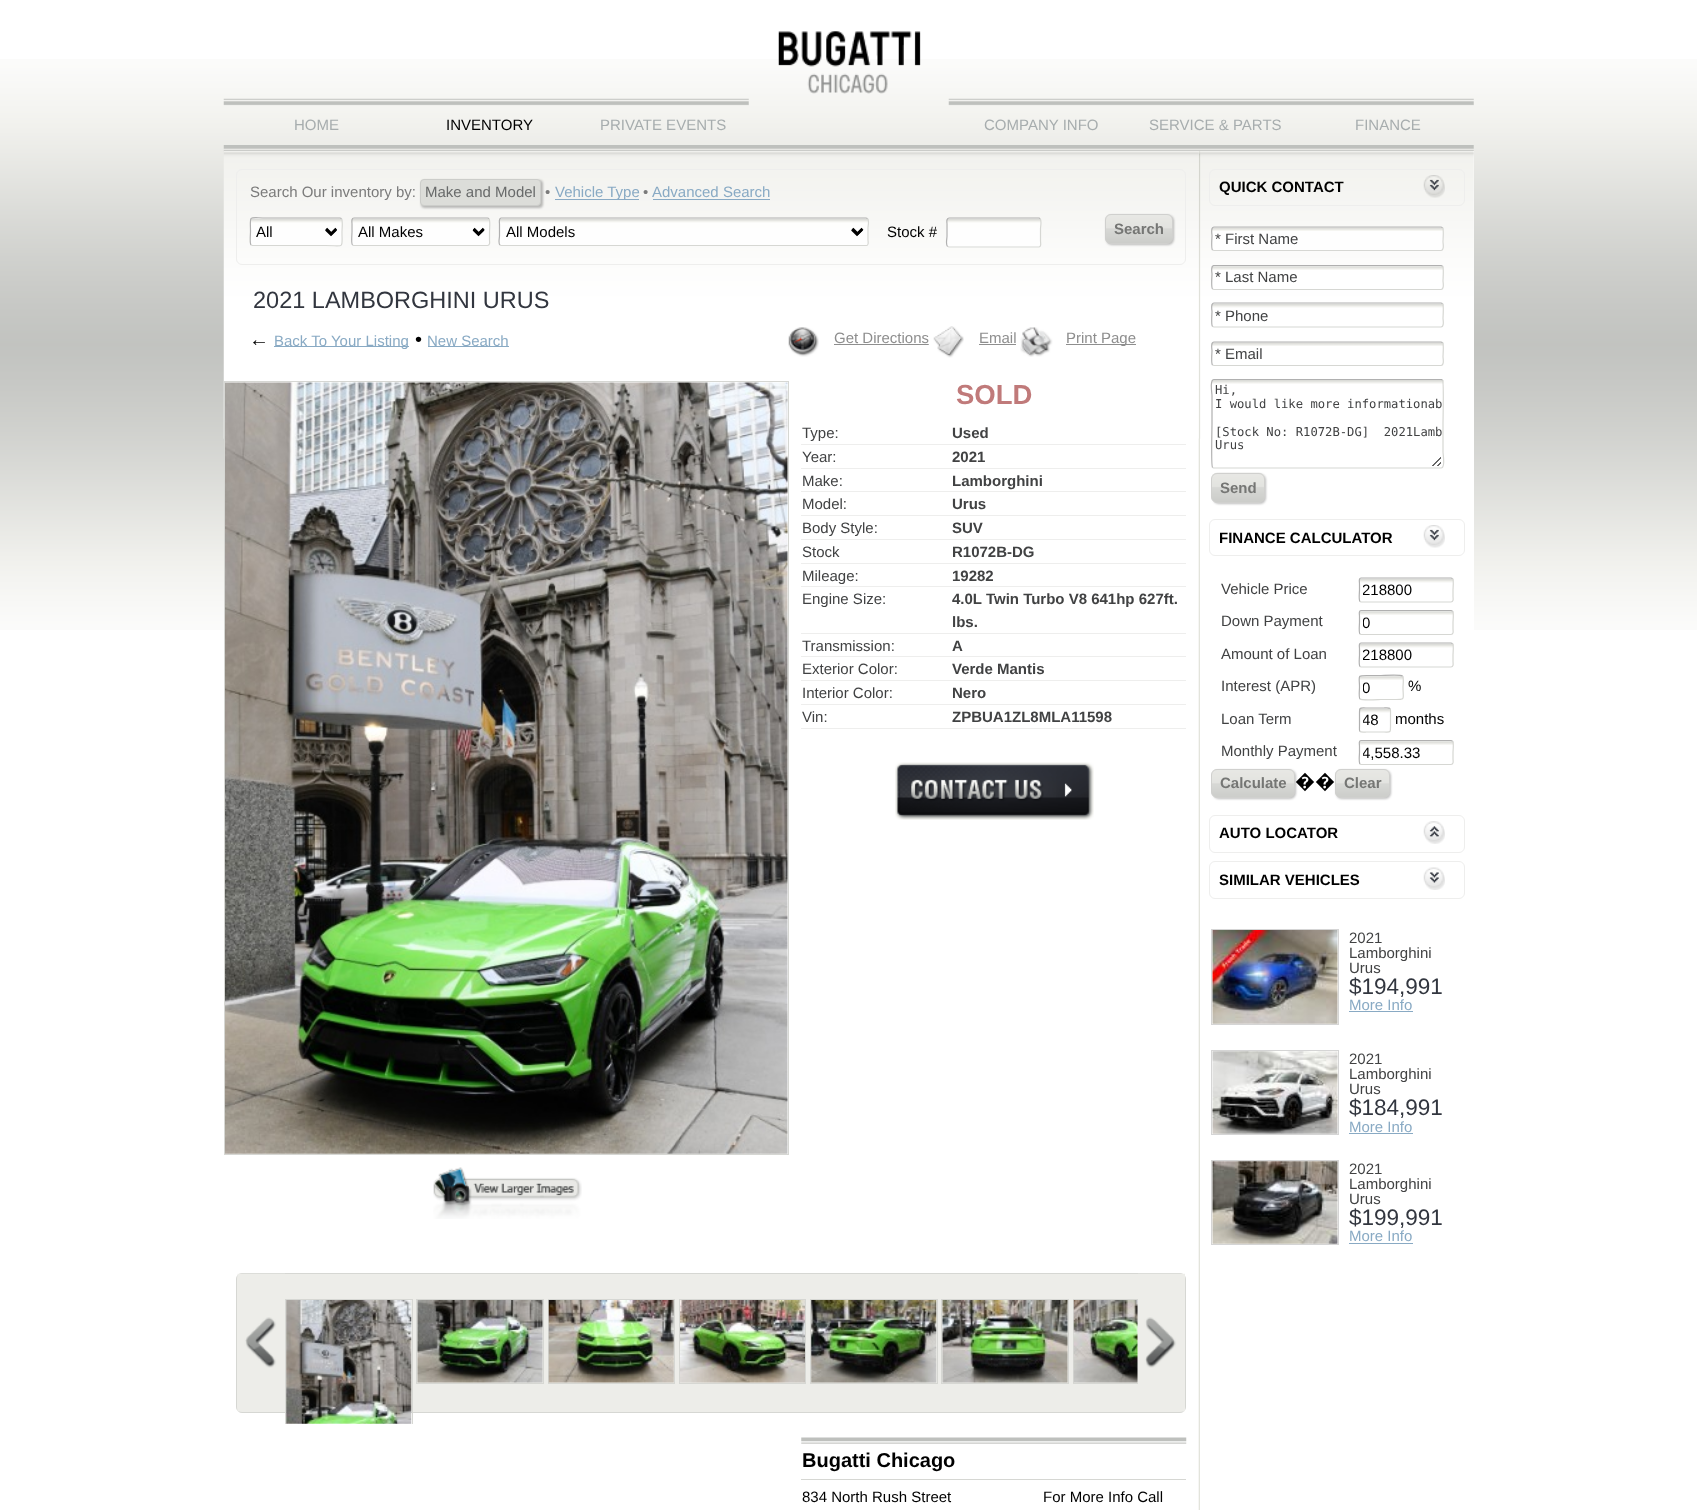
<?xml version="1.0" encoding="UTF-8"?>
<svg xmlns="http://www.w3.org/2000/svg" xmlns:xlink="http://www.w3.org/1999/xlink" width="1697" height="1510">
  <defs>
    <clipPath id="clip1"><rect x="285" y="1286" width="853" height="138" /></clipPath>
    <clipPath id="clip2"><rect x="1363" y="581" width="87" height="18" /></clipPath>
    <clipPath id="clip3"><rect x="1363" y="614" width="87" height="17" /></clipPath>
    <clipPath id="clip4"><rect x="1363" y="646" width="87" height="18" /></clipPath>
    <clipPath id="clip5"><rect x="1363" y="679" width="37" height="17" /></clipPath>
    <clipPath id="clip6"><rect x="1363" y="711" width="25" height="18" /></clipPath>
    <clipPath id="clip7"><rect x="1363" y="744" width="87" height="17" /></clipPath>
  </defs>
  <rect width="100%" height="100%" fill="#ffffff" />
  <image x="0" y="59" width="1697" height="571" xlink:href="image1.png" />
  <image x="223" y="145" width="1251" height="7" xlink:href="image2.png" />
  <image x="778" y="31" width="143" height="63" xlink:href="image3.png" />
  <image x="223" y="98" width="526" height="8" xlink:href="image4.png" />
  <image x="948" y="98" width="526" height="8" xlink:href="image4.png" />
  <rect x="224" y="151" width="1250" height="479" fill="#ffffff" />
  <image x="1198" y="151" width="2" height="1359" xlink:href="image5.png" />
  <image x="1198" y="151" width="276" height="288" xlink:href="image28.png" />
  <image x="223" y="151" width="976" height="288" xlink:href="image6.png" />
  <rect x="236.5" y="169.5" width="949" height="95" rx="5.5" fill="none" stroke="#eeeeed" />
  <rect x="421" y="180" width="122" height="28" rx="4" fill="#000000" fill-opacity="0.25" filter="blur(1px)" />
  <rect x="420.5" y="179.5" width="120" height="26" rx="3.5" fill="#dcddd9" stroke="#cccdca" />
  <rect x="555" y="199" width="84" height="1" fill="#89aac4" />
  <rect x="653" y="199" width="117" height="1" fill="#89aac4" />
  <rect x="250" y="218" width="93" height="28" rx="2.5" fill="#ffffff" fill-opacity="0.8" />
  <image x="250" y="218" width="93" height="18" xlink:href="image7.png" />
  <path d="M 341.5 218.5 c 1.5 2 0.5 11 0.5 13.5 c 0 17.5 3 13.5 -16.5 13.5 h -73 l -1.5 -0.5" fill="none" stroke="#d6d7d3" stroke-width="1.2" />
  <path d="M 251 245 c -1.5 -1.5 -0.5 -11 -0.5 -13 c 0 -18 -3 -14 16.5 -14 h 73 l 1.5 0.5" fill="none" stroke="#b0b0b0" stroke-width="1.2" />
  <path d="M 326 229.5 l 5 5 l 5 -5" fill="none" stroke="#000000" stroke-width="2.5" />
  <rect x="351" y="218" width="139" height="28" rx="2.5" fill="#ffffff" fill-opacity="0.8" />
  <image x="351" y="218" width="139" height="18" xlink:href="image8.png" />
  <path d="M 489 218.5 c 1.5 2 0.5 11 0.5 13.5 v 8 c 0 1 1 5.5 -2 5.5 h -134 l -1 -0.5" fill="none" stroke="#d6d7d3" stroke-width="1.2" />
  <path d="M 352.5 245 c -1.5 -1.5 -0.5 -11 -0.5 -13 v -8 c 0 -1.5 -1 -6 2 -6 h 133.5 l 1.5 0.5" fill="none" stroke="#b0b0b0" stroke-width="1.2" />
  <path d="M 473.5 229.5 l 5 5 l 5 -5" fill="none" stroke="#000000" stroke-width="2.5" />
  <rect x="499" y="218" width="370" height="28" rx="2.5" fill="#ffffff" fill-opacity="0.8" />
  <image x="499" y="218" width="370" height="18" xlink:href="image9.png" />
  <path d="M 867.5 218.5 c 2 2 0.5 7.5 0.5 9.5 v 12 c 0 1 1 5.5 -1.5 5.5 h -365.5 l -1 -0.5" fill="none" stroke="#d6d7d3" stroke-width="1.2" />
  <path d="M 500 245 c -2 -1.5 -0.5 -7 -0.5 -9 v -12 c 0 -1.5 -1 -5.5 1.5 -6 h 365 l 1.5 0.5" fill="none" stroke="#b0b0b0" stroke-width="1.2" />
  <path d="M 852 229.5 l 5 5 l 5 -5" fill="none" stroke="#000000" stroke-width="2.5" />
  <rect x="946" y="218" width="95" height="30" rx="2.5" fill="#ffffff" fill-opacity="0.8" />
  <image x="946" y="218" width="95" height="5" xlink:href="image10.png" />
  <path d="M 1040 218.5 c 2 2 0.5 8 0.5 10 v 12.5 c 0 1 1 6 -1.5 6 h -90 l -1.5 -0.5" fill="none" stroke="#d6d7d3" stroke-width="1.2" />
  <path d="M 947.5 246.5 c -2 -2 -0.5 -8 -0.5 -10 v -12.5 c 0 -1 -1 -6 2 -6 h 90 l 1 0.5" fill="none" stroke="#b0b0b0" stroke-width="1.2" />
  <rect x="1106" y="215" width="68" height="30" rx="6" fill="#000000" fill-opacity="0.25" filter="blur(1px)" />
  <image x="1105" y="214" width="68" height="30" xlink:href="image11.png" />
  <rect x="1105.5" y="214.5" width="67" height="29" rx="5.5" fill="none" stroke="#d0d0ce" />
  <rect x="274" y="346" width="135" height="1" fill="#89aac4" />
  <rect x="428" y="346" width="81" height="1" fill="#89aac4" />
  <image x="788" y="327" width="31" height="30" xlink:href="image12.png" />
  <rect x="834" y="344" width="95" height="1" fill="#8e8e8e" />
  <rect x="979" y="344" width="37" height="1" fill="#8e8e8e" />
  <image x="1020" y="327" width="33" height="30" xlink:href="image14.png" />
  <rect x="1066" y="344" width="70" height="1" fill="#8e8e8e" />
  <rect x="224.5" y="381.5" width="564" height="773" fill="none" stroke="#d6d7d3" />
  <image x="225" y="382" width="563" height="772" xlink:href="image15.png" />
  <image x="433" y="1167" width="149" height="52" xlink:href="image16.png" />
  <rect x="801" y="444" width="385" height="1" fill="#eeeeed" />
  <rect x="801" y="468" width="385" height="1" fill="#eeeeed" />
  <rect x="801" y="491" width="385" height="1" fill="#eeeeed" />
  <rect x="801" y="515" width="385" height="1" fill="#eeeeed" />
  <rect x="801" y="539" width="385" height="1" fill="#eeeeed" />
  <rect x="801" y="563" width="385" height="1" fill="#eeeeed" />
  <rect x="801" y="586" width="385" height="1" fill="#eeeeed" />
  <rect x="801" y="633" width="385" height="1" fill="#eeeeed" />
  <rect x="801" y="656" width="385" height="1" fill="#eeeeed" />
  <rect x="801" y="680" width="385" height="1" fill="#eeeeed" />
  <rect x="801" y="704" width="385" height="1" fill="#eeeeed" />
  <rect x="801" y="728" width="385" height="1" fill="#eeeeed" />
  <image x="895" y="762" width="199" height="58" xlink:href="image17.png" />
  <rect x="236.5" y="1273.5" width="949" height="139" rx="5.5" fill="#edede9" stroke="#d6d7d3" />
  <image x="237" y="1273" width="48" height="139" xlink:href="image18.png" />
  <image x="1138" y="1273" width="47" height="139" xlink:href="image19.png" />
  <g clip-path="url(#clip1)">
    <rect x="285.5" y="1299.5" width="127" height="173" fill="none" stroke="#d6d7d3" />
  </g>
  <image x="286" y="1300" width="126" height="124" xlink:href="image20.png" />
  <rect x="416.5" y="1299.5" width="127" height="84" fill="none" stroke="#d6d7d3" />
  <image x="417" y="1300" width="126" height="83" xlink:href="image21.png" />
  <rect x="548.5" y="1299.5" width="126" height="84" fill="none" stroke="#d6d7d3" />
  <image x="548" y="1300" width="126" height="83" xlink:href="image22.png" />
  <rect x="679.5" y="1299.5" width="126" height="84" fill="none" stroke="#d6d7d3" />
  <image x="680" y="1300" width="125" height="83" xlink:href="image23.png" />
  <rect x="810.5" y="1299.5" width="127" height="84" fill="none" stroke="#d6d7d3" />
  <image x="811" y="1300" width="126" height="83" xlink:href="image24.png" />
  <rect x="941.5" y="1299.5" width="127" height="84" fill="none" stroke="#d6d7d3" />
  <image x="942" y="1300" width="126" height="83" xlink:href="image25.png" />
  <g clip-path="url(#clip1)">
    <rect x="1073.5" y="1299.5" width="126" height="84" fill="none" stroke="#d6d7d3" />
  </g>
  <image x="1073" y="1300" width="65" height="83" xlink:href="image26.png" />
  <image x="801" y="1437" width="386" height="7" xlink:href="image27.png" />
  <rect x="801" y="1479" width="385" height="1" fill="#d6d7d3" />
  <rect x="1209.5" y="169.5" width="255" height="36" rx="5.5" fill="none" stroke="#eeeeed" />
  <image x="1423" y="175" width="22" height="23" xlink:href="image29.png" />
  <rect x="1211" y="226" width="233" height="25" rx="2.5" fill="#ffffff" fill-opacity="0.8" />
  <image x="1211" y="227" width="233" height="4" xlink:href="image30.png" />
  <path d="M 1442.5 227.5 c 1.5 1.5 0.5 12 0.5 14.5 c 0 1 1.5 8.5 -2 8.5 h -227 l -1.5 -0.5" fill="none" stroke="#d6d7d3" stroke-width="1.2" />
  <path d="M 1212.5 250 c -1.5 -1.5 -0.5 -12 -0.5 -14.5 c 0 -1 -1.5 -8.5 2 -8.5 h 227 l 1.5 0.5" fill="none" stroke="#b0b0b0" stroke-width="1.2" />
  <rect x="1211" y="265" width="233" height="25" rx="2.5" fill="#ffffff" fill-opacity="0.8" />
  <image x="1211" y="266" width="233" height="4" xlink:href="image31.png" />
  <path d="M 1442.5 266 c 1.5 1.5 0.5 12.5 0.5 15 c 0 1 1.5 8.5 -2 8.5 h -227 l -1.5 -0.5" fill="none" stroke="#d6d7d3" stroke-width="1.2" />
  <path d="M 1212.5 289 c -1.5 -1.5 -0.5 -12.5 -0.5 -15 c 0 -1 -1.5 -8.5 2 -8.5 h 227 l 1.5 0.5" fill="none" stroke="#b0b0b0" stroke-width="1.2" />
  <image x="1211" y="303" width="233" height="5" xlink:href="image32.png" />
  <path d="M 1442.5 303.5 c 1.5 1.5 0.5 12.5 0.5 15 c 0 1 1.5 8.5 -2 8.5 h -227 l -1.5 -0.5" fill="none" stroke="#d6d7d3" stroke-width="1.2" />
  <path d="M 1212.5 326.5 c -1.5 -1.5 -0.5 -12.5 -0.5 -15 c 0 -1 -1.5 -8.5 2 -8.5 h 227 l 1.5 0.5" fill="none" stroke="#b0b0b0" stroke-width="1.2" />
  <image x="1211" y="342" width="233" height="4" xlink:href="image33.png" />
  <path d="M 1442.5 342.5 c 1.5 1.5 0.5 12 0.5 14.5 c 0 1 1.5 8.5 -2 8.5 h -227 l -1.5 -0.5" fill="none" stroke="#d6d7d3" stroke-width="1.2" />
  <path d="M 1212.5 365 c -1.5 -1.5 -0.5 -12 -0.5 -14.5 c 0 -1 -1.5 -8.5 2 -8.5 h 227 l 1.5 0.5" fill="none" stroke="#b0b0b0" stroke-width="1.2" />
  <image x="1211" y="380" width="233" height="86" xlink:href="image34.png" />
  <path d="M 1442.5 380 c 1.5 1.5 0.5 39 0.5 44 v 28 c 0 2 2.5 16 -2 16 h -227.5 l -1 -0.5" fill="none" stroke="#d6d7d3" stroke-width="1.2" />
  <path d="M 1212.5 467.5 c -1.5 -1.5 -0.5 -39 -0.5 -43.5 v -28.5 c 0 -2 -2.5 -16 2 -16 h 227.5 l 1 0.5" fill="none" stroke="#b0b0b0" stroke-width="1.2" />
  <rect x="1213" y="474" width="53" height="30" rx="6" fill="#000000" fill-opacity="0.25" filter="blur(1px)" />
  <image x="1211" y="472" width="54" height="30" xlink:href="image35.png" />
  <rect x="1211.5" y="473.5" width="53" height="29" rx="5.5" fill="none" stroke="#d0d0ce" />
  <rect x="1209.5" y="519.5" width="255" height="36" rx="5.5" fill="none" stroke="#eeeeed" />
  <image x="1423" y="525" width="22" height="23" xlink:href="image36.png" />
  <image x="1359" y="578" width="95" height="5" xlink:href="image37.png" />
  <path d="M 1452.5 578.5 c 1.5 1.5 0.5 9.5 0.5 11.5 v 6.5 c 0 1.5 1 5.5 -2 5.5 h -90 l -1 -0.5" fill="none" stroke="#d6d7d3" stroke-width="1.2" />
  <path d="M 1360 601.5 c -1.5 -1.5 -0.5 -9.5 -0.5 -11.5 v -6.5 c 0 -1.5 -1 -5.5 1.5 -5.5 h 90 l 1.5 0.5" fill="none" stroke="#b0b0b0" stroke-width="1.2" />
  <image x="1359" y="611" width="95" height="4" xlink:href="image38.png" />
  <path d="M 1452.5 611 c 1.5 1.5 0.5 9.5 0.5 11.5 v 6.5 c 0 1.5 1 5.5 -2 5.5 h -90 l -1 -0.5" fill="none" stroke="#d6d7d3" stroke-width="1.2" />
  <path d="M 1360 634 c -1.5 -1.5 -0.5 -9.5 -0.5 -11.5 v -6.5 c 0 -1.5 -1 -5.5 1.5 -5.5 h 90 l 1.5 0.5" fill="none" stroke="#b0b0b0" stroke-width="1.2" />
  <image x="1359" y="643" width="95" height="5" xlink:href="image37.png" />
  <path d="M 1452.5 643.5 c 1.5 1.5 0.5 9.5 0.5 11.5 v 6.5 c 0 1.5 1 5.5 -2 5.5 h -90 l -1 -0.5" fill="none" stroke="#d6d7d3" stroke-width="1.2" />
  <path d="M 1360 666.5 c -1.5 -1.5 -0.5 -9.5 -0.5 -11.5 v -6.5 c 0 -1.5 -1 -5.5 1.5 -5.5 h 90 l 1.5 0.5" fill="none" stroke="#b0b0b0" stroke-width="1.2" />
  <image x="1359" y="676" width="45" height="4" xlink:href="image39.png" />
  <path d="M 1402.5 676 c 1.5 1.5 0.5 9.5 0.5 11.5 c 0 12.5 3 12 -8.5 12 h -13.5 c -2.5 0 -19.5 1 -21 -0.5" fill="none" stroke="#d6d7d3" stroke-width="1.2" />
  <path d="M 1360 699 c -1.5 -1.5 -0.5 -9.5 -0.5 -11.5 c 0 -12.5 -3 -12 8.5 -12 h 13 c 3 0 20 -1 21.5 0.5" fill="none" stroke="#b0b0b0" stroke-width="1.2" />
  <image x="1359" y="708" width="32" height="5" xlink:href="image40.png" />
  <path d="M 1390 708.5 c 1 1 0.5 4 0.5 5 v 13 c 0 6.5 0 5.5 -6.5 5.5 h -18 c -0.5 0 -5 0.5 -6 -0.5" fill="none" stroke="#d6d7d3" stroke-width="1.2" />
  <path d="M 1360 731.5 c -1 -1 -0.5 -4 -0.5 -5 v -13 c 0 -6.5 0 -5.5 6.5 -5.5 h 18 c 0.5 0 5 -0.5 6 0.5" fill="none" stroke="#b0b0b0" stroke-width="1.2" />
  <image x="1359" y="741" width="95" height="4" xlink:href="image41.png" />
  <path d="M 1452.5 741 c 1.5 1.5 0.5 9.5 0.5 11.5 v 6.5 c 0 1.5 1 5.5 -2 5.5 h -90 l -1 -0.5" fill="none" stroke="#d6d7d3" stroke-width="1.2" />
  <path d="M 1360 764 c -1.5 -1.5 -0.5 -9.5 -0.5 -11.5 v -6.5 c 0 -1.5 -1 -5.5 1.5 -5.5 h 90 l 1.5 0.5" fill="none" stroke="#b0b0b0" stroke-width="1.2" />
  <rect x="1213" y="770" width="83" height="29" rx="6" fill="#000000" fill-opacity="0.25" filter="blur(1px)" />
  <image x="1211" y="769" width="84" height="28" xlink:href="image42.png" />
  <rect x="1211.5" y="769.5" width="83" height="28" rx="5.5" fill="none" stroke="#d0d0ce" />
  <rect x="1336" y="770" width="55" height="29" rx="6" fill="#000000" fill-opacity="0.25" filter="blur(1px)" />
  <image x="1335" y="769" width="55" height="28" xlink:href="image43.png" />
  <rect x="1335.5" y="769.5" width="54" height="28" rx="5.5" fill="none" stroke="#d0d0ce" />
  <rect x="1209.5" y="815.5" width="255" height="37" rx="5.5" fill="none" stroke="#eeeeed" />
  <image x="1423" y="821" width="22" height="23" xlink:href="image44.png" />
  <rect x="1209.5" y="861.5" width="255" height="37" rx="5.5" fill="none" stroke="#eeeeed" />
  <image x="1423" y="867" width="22" height="23" xlink:href="image45.png" />
  <rect x="1211.5" y="929.5" width="127" height="95" fill="none" stroke="#d5d5d5" />
  <image x="1212" y="930" width="126" height="94" xlink:href="image46.png" />
  <rect x="1349" y="1011" width="64" height="1" fill="#89aac4" />
  <rect x="1211.5" y="1050.5" width="127" height="84" fill="none" stroke="#d5d5d5" />
  <image x="1212" y="1051" width="126" height="83" xlink:href="image47.png" />
  <rect x="1349" y="1133" width="64" height="1" fill="#89aac4" />
  <rect x="1211.5" y="1160.5" width="127" height="84" fill="none" stroke="#d5d5d5" />
  <image x="1212" y="1161" width="126" height="83" xlink:href="image48.png" />
  <rect x="1349" y="1243" width="64" height="1" fill="#89aac4" />
  <text x="294" y="130" style="font-family: Liberation Sans; font-size: 15px; fill: #a7adae">HOME</text>
  <text x="446" y="130" style="font-family: Liberation Sans; font-size: 15px; fill: #000000">INVENTORY</text>
  <text x="600" y="130" style="font-family: Liberation Sans; font-size: 15px; fill: #a7adae">PRIVATE EVENTS</text>
  <text x="984" y="130" style="font-family: Liberation Sans; font-size: 15px; fill: #a7adae">COMPANY INFO</text>
  <text x="1149" y="130" style="font-family: Liberation Sans; font-size: 15px; fill: #a7adae">SERVICE &amp; PARTS</text>
  <text x="1355" y="130" style="font-family: Liberation Sans; font-size: 15px; fill: #a7adae">FINANCE</text>
  <text x="250" y="197" style="font-family: Liberation Sans; font-size: 15px; fill: #7b7b7b">Search Our inventory by:</text>
  <text x="425" y="197" style="font-family: Liberation Sans; font-size: 15px; fill: #686a6a">Make and Model</text>
  <text x="545" y="197" style="font-family: Liberation Sans; font-size: 15px; fill: #7b7b7b">•</text>
  <text x="555" y="197" style="font-family: Liberation Sans; font-size: 15px; fill: #89aac4">Vehicle Type</text>
  <text x="643" y="197" style="font-family: Liberation Sans; font-size: 15px; fill: #7b7b7b">•</text>
  <text x="652" y="197" style="font-family: Liberation Sans; font-size: 15px; fill: #89aac4">Advanced Search</text>
  <text x="256" y="237" style="font-family: Liberation Sans; font-size: 15px; fill: #000000">All</text>
  <text x="358" y="237" style="font-family: Liberation Sans; font-size: 15px; fill: #000000">All Makes</text>
  <text x="506" y="237" style="font-family: Liberation Sans; font-size: 15px; fill: #000000">All Models</text>
  <text x="887" y="237" style="font-family: Liberation Sans; font-size: 15px; fill: #000000">Stock #</text>
  <text x="1114" y="234" style="font-family: Liberation Sans; font-size: 15px; font-weight: bold; fill: #757674">Search</text>
  <text x="253" y="308" style="font-family: Liberation Sans; font-size: 23.5px; fill: #32363f">2021 LAMBORGHINI URUS</text>
  <text x="249" y="346" style="font-family: Liberation Sans; font-size: 20px; fill: #000000">←</text>
  <text x="274" y="346" style="font-family: Liberation Sans; font-size: 15px; fill: #89aac4">Back To Your Listing</text>
  <text x="415" y="346" style="font-family: Liberation Sans; font-size: 20px; fill: #000000">•</text>
  <text x="427" y="346" style="font-family: Liberation Sans; font-size: 15px; fill: #89aac4">New Search</text>
  <text x="834" y="343" style="font-family: Liberation Sans; font-size: 15px; fill: #8e8e8e">Get Directions</text>
  <image x="928" y="326" width="36" height="32" xlink:href="image13.png" />
  <text x="979" y="343" style="font-family: Liberation Sans; font-size: 15px; fill: #8e8e8e">Email</text>
  <text x="1066" y="343" style="font-family: Liberation Sans; font-size: 15px; fill: #8e8e8e">Print Page</text>
  <text x="956" y="404" style="font-family: Liberation Sans; font-size: 27.5px; font-weight: bold; fill: #c07a7a">SOLD</text>
  <text x="802" y="438" style="font-family: Liberation Sans; font-size: 15px; fill: #414243">Type:</text>
  <text x="952" y="438" style="font-family: Liberation Sans; font-size: 15px; font-weight: bold; fill: #414243">Used</text>
  <text x="802" y="462" style="font-family: Liberation Sans; font-size: 15px; fill: #414243">Year:</text>
  <text x="952" y="462" style="font-family: Liberation Sans; font-size: 15px; font-weight: bold; fill: #414243">2021</text>
  <text x="802" y="486" style="font-family: Liberation Sans; font-size: 15px; fill: #414243">Make:</text>
  <text x="952" y="486" style="font-family: Liberation Sans; font-size: 15px; font-weight: bold; fill: #414243">Lamborghini</text>
  <text x="802" y="509" style="font-family: Liberation Sans; font-size: 15px; fill: #414243">Model:</text>
  <text x="952" y="509" style="font-family: Liberation Sans; font-size: 15px; font-weight: bold; fill: #414243">Urus</text>
  <text x="802" y="533" style="font-family: Liberation Sans; font-size: 15px; fill: #414243">Body Style:</text>
  <text x="952" y="533" style="font-family: Liberation Sans; font-size: 15px; font-weight: bold; fill: #414243">SUV</text>
  <text x="802" y="557" style="font-family: Liberation Sans; font-size: 15px; fill: #414243">Stock</text>
  <text x="952" y="557" style="font-family: Liberation Sans; font-size: 15px; font-weight: bold; fill: #414243">R1072B-DG</text>
  <text x="802" y="581" style="font-family: Liberation Sans; font-size: 15px; fill: #414243">Mileage:</text>
  <text x="952" y="581" style="font-family: Liberation Sans; font-size: 15px; font-weight: bold; fill: #414243">19282</text>
  <text x="802" y="604" style="font-family: Liberation Sans; font-size: 15px; fill: #414243">Engine Size:</text>
  <text x="952" y="604" style="font-family: Liberation Sans; font-size: 15px; font-weight: bold; fill: #414243">4.0L Twin Turbo V8 641hp 627ft.</text>
  <text x="952" y="627" style="font-family: Liberation Sans; font-size: 15px; font-weight: bold; fill: #414243">lbs.</text>
  <text x="802" y="651" style="font-family: Liberation Sans; font-size: 15px; fill: #414243">Transmission:</text>
  <text x="952" y="651" style="font-family: Liberation Sans; font-size: 15px; font-weight: bold; fill: #414243">A</text>
  <text x="802" y="674" style="font-family: Liberation Sans; font-size: 15px; fill: #414243">Exterior Color:</text>
  <text x="952" y="674" style="font-family: Liberation Sans; font-size: 15px; font-weight: bold; fill: #414243">Verde Mantis</text>
  <text x="802" y="698" style="font-family: Liberation Sans; font-size: 15px; fill: #414243">Interior Color:</text>
  <text x="952" y="698" style="font-family: Liberation Sans; font-size: 15px; font-weight: bold; fill: #414243">Nero</text>
  <text x="802" y="722" style="font-family: Liberation Sans; font-size: 15px; fill: #414243">Vin:</text>
  <text x="952" y="722" style="font-family: Liberation Sans; font-size: 15px; font-weight: bold; fill: #414243">ZPBUA1ZL8MLA11598</text>
  <text x="802" y="1467" style="font-family: Liberation Sans; font-size: 20px; font-weight: bold; fill: #000000">Bugatti Chicago</text>
  <text x="802" y="1502" style="font-family: Liberation Sans; font-size: 15px; fill: #000000">834 North Rush Street</text>
  <text x="1043" y="1502" style="font-family: Liberation Sans; font-size: 15px; fill: #000000">For More Info Call</text>
  <text x="1219" y="192" style="font-family: Liberation Sans; font-size: 15px; font-weight: bold; fill: #000000">QUICK CONTACT</text>
  <text x="1215" y="244" style="font-family: Liberation Sans; font-size: 15px; fill: #414243">* First Name</text>
  <text x="1215" y="282" style="font-family: Liberation Sans; font-size: 15px; fill: #414243">* Last Name</text>
  <text x="1215" y="321" style="font-family: Liberation Sans; font-size: 15px; fill: #414243">* Phone</text>
  <text x="1215" y="359" style="font-family: Liberation Sans; font-size: 15px; fill: #414243">* Email</text>
  <text x="1215" y="394" style="font-family: DejaVu Sans Mono; font-size: 12.2px; fill: #414243">Hi,</text>
  <text x="1215" y="408" style="font-family: DejaVu Sans Mono; font-size: 12.2px; fill: #414243">I would like more informationab</text>
  <text x="1215" y="436" style="font-family: DejaVu Sans Mono; font-size: 12.2px; fill: #414243" xml:space="preserve">[Stock No: R1072B-DG]  2021Lamb</text>
  <text x="1215" y="449" style="font-family: DejaVu Sans Mono; font-size: 12.2px; fill: #414243">Urus</text>
  <text x="1220" y="493" style="font-family: Liberation Sans; font-size: 15px; font-weight: bold; fill: #757674">Send</text>
  <text x="1219" y="543" style="font-family: Liberation Sans; font-size: 15px; font-weight: bold; fill: #000000">FINANCE CALCULATOR</text>
  <text x="1221" y="594" style="font-family: Liberation Sans; font-size: 15px; fill: #414243">Vehicle Price</text>
  <g clip-path="url(#clip2)">
    <text x="1362" y="595" style="font-family: Liberation Sans; font-size: 15px; fill: #000000">218800</text>
  </g>
  <text x="1221" y="626" style="font-family: Liberation Sans; font-size: 15px; fill: #414243">Down Payment</text>
  <g clip-path="url(#clip3)">
    <text x="1362" y="628" style="font-family: Liberation Sans; font-size: 15px; fill: #000000">0</text>
  </g>
  <text x="1221" y="659" style="font-family: Liberation Sans; font-size: 15px; fill: #414243">Amount of Loan</text>
  <g clip-path="url(#clip4)">
    <text x="1362" y="660" style="font-family: Liberation Sans; font-size: 15px; fill: #000000">218800</text>
  </g>
  <text x="1221" y="691" style="font-family: Liberation Sans; font-size: 15px; fill: #414243">Interest (APR)</text>
  <g clip-path="url(#clip5)">
    <text x="1362" y="693" style="font-family: Liberation Sans; font-size: 15px; fill: #000000">0</text>
  </g>
  <text x="1408" y="691" style="font-family: Liberation Sans; font-size: 15px; fill: #000000">%</text>
  <text x="1221" y="724" style="font-family: Liberation Sans; font-size: 15px; fill: #414243">Loan Term</text>
  <g clip-path="url(#clip6)">
    <text x="1362" y="725" style="font-family: Liberation Sans; font-size: 15px; fill: #000000">48</text>
  </g>
  <text x="1395" y="724" style="font-family: Liberation Sans; font-size: 15px; fill: #000000">months</text>
  <text x="1221" y="756" style="font-family: Liberation Sans; font-size: 15px; fill: #414243">Monthly Payment</text>
  <g clip-path="url(#clip7)">
    <text x="1362" y="758" style="font-family: Liberation Sans; font-size: 15px; fill: #000000">4,558.33</text>
  </g>
  <text x="1220" y="788" style="font-family: Liberation Sans; font-size: 15px; font-weight: bold; fill: #757674">Calculate</text>
  <text x="1295" y="788" style="font-family: Noto Sans; font-size: 20px; fill: #000000">��</text>
  <text x="1344" y="788" style="font-family: Liberation Sans; font-size: 15px; font-weight: bold; fill: #757674">Clear</text>
  <text x="1219" y="838" style="font-family: Liberation Sans; font-size: 15px; font-weight: bold; fill: #000000">AUTO LOCATOR</text>
  <text x="1219" y="885" style="font-family: Liberation Sans; font-size: 15px; font-weight: bold; fill: #000000">SIMILAR VEHICLES</text>
  <text x="1349" y="943" style="font-family: Liberation Sans; font-size: 15px; fill: #414243">2021</text>
  <text x="1349" y="958" style="font-family: Liberation Sans; font-size: 15px; fill: #414243">Lamborghini</text>
  <text x="1349" y="973" style="font-family: Liberation Sans; font-size: 15px; fill: #414243">Urus</text>
  <text x="1349" y="994" style="font-family: Liberation Sans; font-size: 22.5px; fill: #32363f">$194,991</text>
  <text x="1349" y="1010" style="font-family: Liberation Sans; font-size: 15px; fill: #89aac4">More Info</text>
  <text x="1349" y="1064" style="font-family: Liberation Sans; font-size: 15px; fill: #414243">2021</text>
  <text x="1349" y="1079" style="font-family: Liberation Sans; font-size: 15px; fill: #414243">Lamborghini</text>
  <text x="1349" y="1094" style="font-family: Liberation Sans; font-size: 15px; fill: #414243">Urus</text>
  <text x="1349" y="1115" style="font-family: Liberation Sans; font-size: 22.5px; fill: #32363f">$184,991</text>
  <text x="1349" y="1132" style="font-family: Liberation Sans; font-size: 15px; fill: #89aac4">More Info</text>
  <text x="1349" y="1174" style="font-family: Liberation Sans; font-size: 15px; fill: #414243">2021</text>
  <text x="1349" y="1189" style="font-family: Liberation Sans; font-size: 15px; fill: #414243">Lamborghini</text>
  <text x="1349" y="1204" style="font-family: Liberation Sans; font-size: 15px; fill: #414243">Urus</text>
  <text x="1349" y="1225" style="font-family: Liberation Sans; font-size: 22.5px; fill: #32363f">$199,991</text>
  <text x="1349" y="1241" style="font-family: Liberation Sans; font-size: 15px; fill: #89aac4">More Info</text>
</svg>
